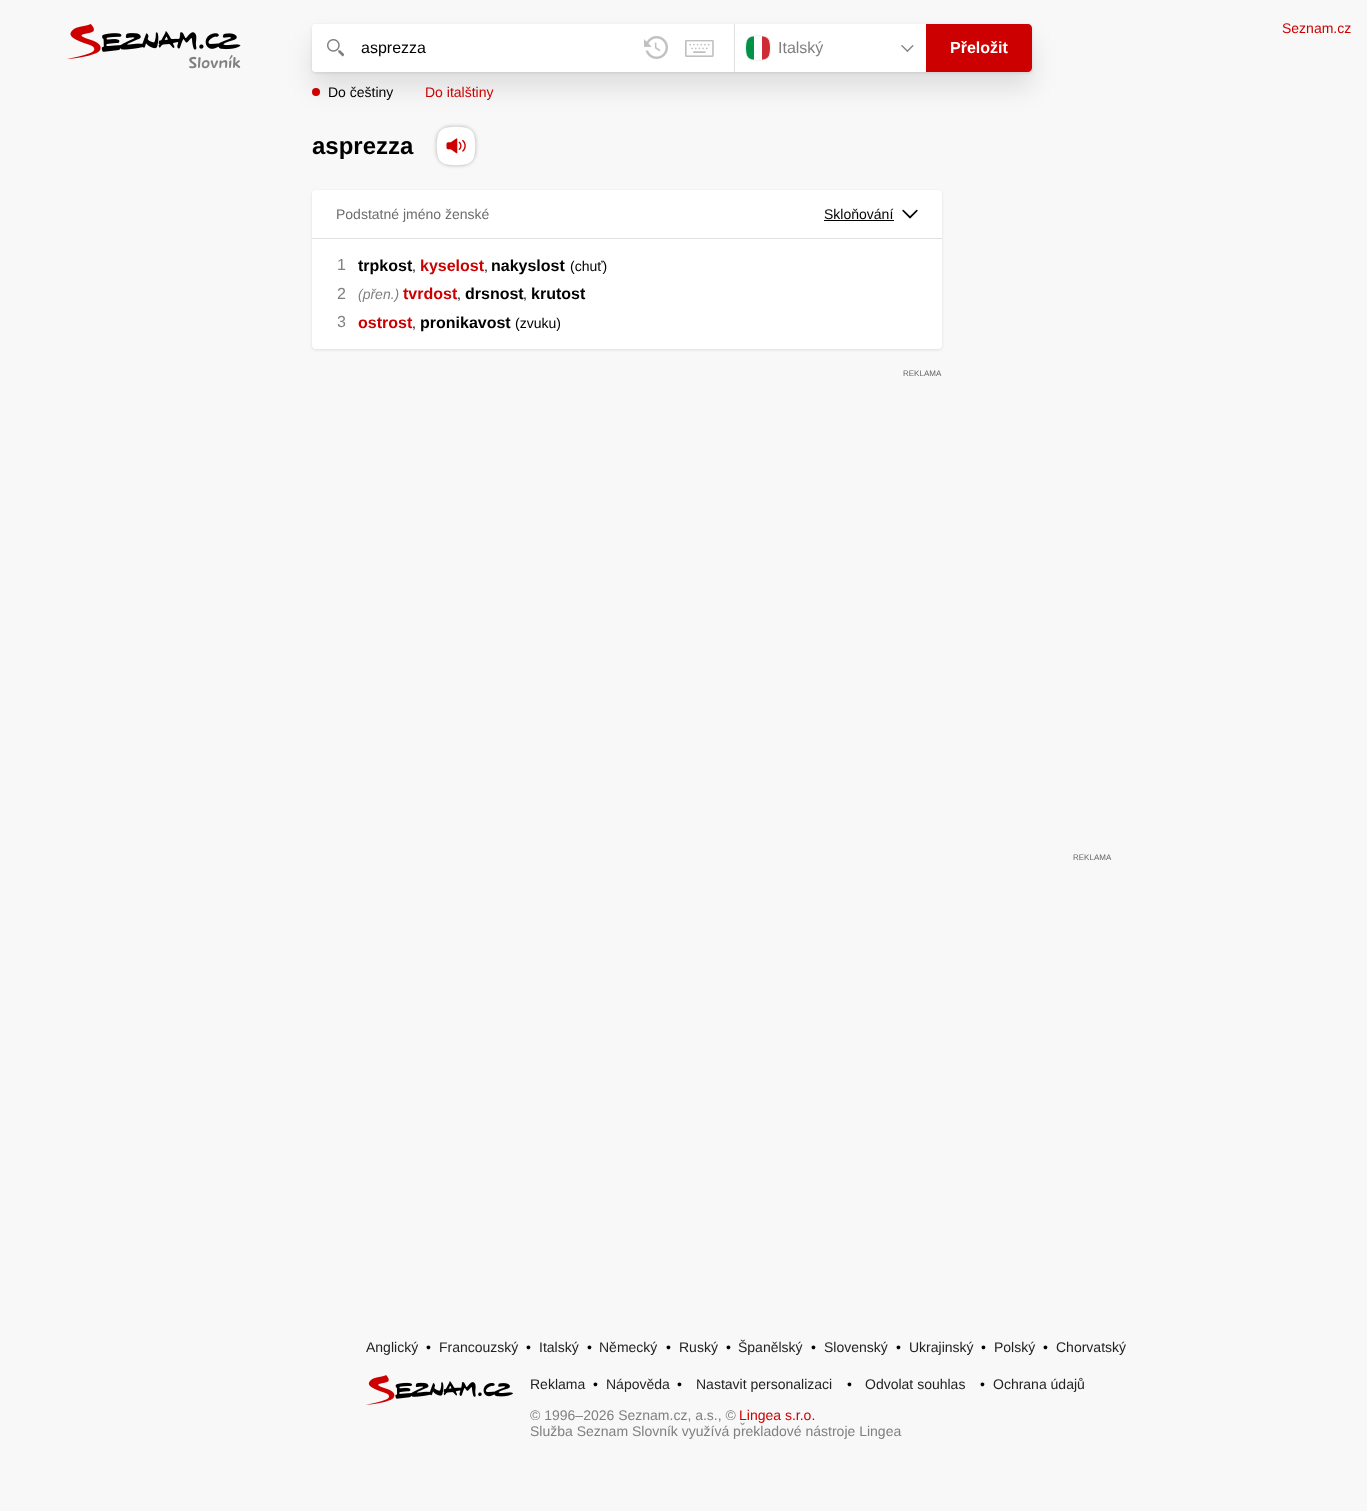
<?xml version="1.0" encoding="UTF-8"?>
<svg xmlns="http://www.w3.org/2000/svg" xmlns:xlink="http://www.w3.org/1999/xlink" width="1367" height="1511">
  <rect width="100%" height="100%" fill="#f8f8f8" />
  <image x="67" y="24" width="174" height="45" xlink:href="image1.png" />
  <rect x="312" y="25" width="720" height="48" rx="4" fill="#000000" fill-opacity="0.1" filter="blur(1.5px)" />
  <rect x="312" y="40" width="720" height="48" rx="4" fill="#000000" fill-opacity="0.1" filter="blur(12px)" />
  <rect x="312" y="24" width="720" height="48" rx="4" fill="#ffffff" />
  <rect x="312" y="24" width="48" height="48" rx="4" fill="#ffffff" />
  <image x="327" y="39" width="17" height="18" xlink:href="image2.png" />
  <image x="644" y="36" width="24" height="23" xlink:href="image3.png" />
  <image x="685" y="40" width="29" height="17" xlink:href="image4.png" />
  <rect x="734" y="24" width="1" height="48" fill="#e0e0e0" />
  <image x="745" y="35" width="26" height="26" xlink:href="image5.png" />
  <image x="901" y="45" width="13" height="7" xlink:href="image6.png" />
  <path d="M 926 24 h 102 c 2 0 4 2 4 4 v 40 c 0 2 -2 4 -4 4 h -102 z" fill="#cc0000" />
  <circle cx="316" cy="92" r="4" fill="#cc0000" />
  <rect x="438" y="128" width="36" height="36" rx="13" fill="#808080" filter="blur(2.5px)" />
  <image x="436" y="126" width="40" height="40" xlink:href="image7.png" />
  <rect x="312" y="191" width="630" height="159" rx="4" fill="#000000" fill-opacity="0.1" filter="blur(1.5px)" />
  <rect x="312" y="190" width="630" height="159" rx="4" fill="#ffffff" />
  <rect x="312" y="238" width="630" height="1" fill="#e0e0e0" />
  <rect x="824" y="220" width="70" height="1" fill="#000000" />
  <image x="902" y="209" width="16" height="10" xlink:href="image8.png" />
  <image x="366" y="1375" width="147" height="30" xlink:href="image9.png" />
  <text x="361" y="53" style="font-family: Liberation Sans; font-size: 16px; fill: #000000">asprezza</text>
  <text x="778" y="53" style="font-family: Liberation Sans; font-size: 16px; fill: #808080">Italský</text>
  <text x="950" y="53" style="font-family: Liberation Sans; font-size: 16px; font-weight: bold; fill: #ffffff">Přeložit</text>
  <text x="328" y="97" style="font-family: Liberation Sans; font-size: 14px; fill: #000000">Do češtiny</text>
  <text x="425" y="97" style="font-family: Liberation Sans; font-size: 14px; fill: #cc0000">Do italštiny</text>
  <text x="1282" y="33" style="font-family: Liberation Sans; font-size: 14px; fill: #cc0000">Seznam.cz</text>
  <text x="312" y="154" style="font-family: Liberation Sans; font-size: 24px; font-weight: bold; fill: #000000">asprezza</text>
  <text x="336" y="219" style="font-family: Liberation Sans; font-size: 14px; fill: #6d6d6d">Podstatné jméno ženské</text>
  <text x="824" y="219" style="font-family: Liberation Sans; font-size: 14px; fill: #000000">Skloňování</text>
  <text x="337" y="270" style="font-family: Liberation Sans; font-size: 16px; fill: #808080">1</text>
  <text x="358" y="271" style="font-family: Liberation Sans; font-size: 16px; font-weight: bold; fill: #000000">trpkost</text>
  <text x="412" y="271" style="font-family: Liberation Sans; font-size: 14px; fill: #000000">,</text>
  <text x="420" y="271" style="font-family: Liberation Sans; font-size: 16px; font-weight: bold; fill: #cc0000">kyselost</text>
  <text x="484" y="271" style="font-family: Liberation Sans; font-size: 14px; fill: #000000">,</text>
  <text x="491" y="271" style="font-family: Liberation Sans; font-size: 16px; font-weight: bold; fill: #000000">nakyslost</text>
  <text x="570" y="271" style="font-family: Liberation Sans; font-size: 14px; fill: #000000">(chuť)</text>
  <text x="337" y="299" style="font-family: Liberation Sans; font-size: 16px; fill: #808080">2</text>
  <text x="358" y="299" style="font-family: Liberation Sans; font-size: 14px; font-style: italic; fill: #808080">(přen.)</text>
  <text x="403" y="299" style="font-family: Liberation Sans; font-size: 16px; font-weight: bold; fill: #cc0000">tvrdost</text>
  <text x="457" y="299" style="font-family: Liberation Sans; font-size: 14px; fill: #000000">,</text>
  <text x="465" y="299" style="font-family: Liberation Sans; font-size: 16px; font-weight: bold; fill: #000000">drsnost</text>
  <text x="523" y="299" style="font-family: Liberation Sans; font-size: 14px; fill: #000000">,</text>
  <text x="531" y="299" style="font-family: Liberation Sans; font-size: 16px; font-weight: bold; fill: #000000">krutost</text>
  <text x="337" y="327" style="font-family: Liberation Sans; font-size: 16px; fill: #808080">3</text>
  <text x="358" y="328" style="font-family: Liberation Sans; font-size: 16px; font-weight: bold; fill: #cc0000">ostrost</text>
  <text x="412" y="328" style="font-family: Liberation Sans; font-size: 14px; fill: #000000">,</text>
  <text x="420" y="328" style="font-family: Liberation Sans; font-size: 16px; font-weight: bold; fill: #000000">pronikavost</text>
  <text x="515" y="328" style="font-family: Liberation Sans; font-size: 14px; fill: #000000">(zvuku)</text>
  <text x="903" y="376" style="font-family: Liberation Sans; font-size: 8px; fill: #666666">REKLAMA</text>
  <text x="1073" y="860" style="font-family: Liberation Sans; font-size: 8px; fill: #666666">REKLAMA</text>
  <text x="366" y="1352" style="font-family: Liberation Sans; font-size: 14px; fill: #222222">Anglický</text>
  <text x="426" y="1352" style="font-family: Liberation Sans; font-size: 14px; fill: #000000">•</text>
  <text x="439" y="1352" style="font-family: Liberation Sans; font-size: 14px; fill: #222222">Francouzský</text>
  <text x="526" y="1352" style="font-family: Liberation Sans; font-size: 14px; fill: #000000">•</text>
  <text x="539" y="1352" style="font-family: Liberation Sans; font-size: 14px; fill: #222222">Italský</text>
  <text x="587" y="1352" style="font-family: Liberation Sans; font-size: 14px; fill: #000000">•</text>
  <text x="599" y="1352" style="font-family: Liberation Sans; font-size: 14px; fill: #222222">Německý</text>
  <text x="666" y="1352" style="font-family: Liberation Sans; font-size: 14px; fill: #000000">•</text>
  <text x="679" y="1352" style="font-family: Liberation Sans; font-size: 14px; fill: #222222">Ruský</text>
  <text x="726" y="1352" style="font-family: Liberation Sans; font-size: 14px; fill: #000000">•</text>
  <text x="738" y="1352" style="font-family: Liberation Sans; font-size: 14px; fill: #222222">Španělský</text>
  <text x="811" y="1352" style="font-family: Liberation Sans; font-size: 14px; fill: #000000">•</text>
  <text x="824" y="1352" style="font-family: Liberation Sans; font-size: 14px; fill: #222222">Slovenský</text>
  <text x="896" y="1352" style="font-family: Liberation Sans; font-size: 14px; fill: #000000">•</text>
  <text x="909" y="1352" style="font-family: Liberation Sans; font-size: 14px; fill: #222222">Ukrajinský</text>
  <text x="981" y="1352" style="font-family: Liberation Sans; font-size: 14px; fill: #000000">•</text>
  <text x="994" y="1352" style="font-family: Liberation Sans; font-size: 14px; fill: #222222">Polský</text>
  <text x="1043" y="1352" style="font-family: Liberation Sans; font-size: 14px; fill: #000000">•</text>
  <text x="1056" y="1352" style="font-family: Liberation Sans; font-size: 14px; fill: #222222">Chorvatský</text>
  <text x="530" y="1389" style="font-family: Liberation Sans; font-size: 14px; fill: #222222">Reklama</text>
  <text x="593" y="1389" style="font-family: Liberation Sans; font-size: 14px; fill: #000000">•</text>
  <text x="606" y="1389" style="font-family: Liberation Sans; font-size: 14px; fill: #222222">Nápověda</text>
  <text x="677" y="1389" style="font-family: Liberation Sans; font-size: 14px; fill: #000000">•</text>
  <text x="696" y="1389" style="font-family: Liberation Sans; font-size: 14px; fill: #222222">Nastavit personalizaci</text>
  <text x="847" y="1389" style="font-family: Liberation Sans; font-size: 14px; fill: #000000">•</text>
  <text x="865" y="1389" style="font-family: Liberation Sans; font-size: 14px; fill: #222222">Odvolat souhlas</text>
  <text x="980" y="1389" style="font-family: Liberation Sans; font-size: 14px; fill: #000000">•</text>
  <text x="993" y="1389" style="font-family: Liberation Sans; font-size: 14px; fill: #222222">Ochrana údajů</text>
  <text x="530" y="1420" style="font-family: Liberation Sans; font-size: 14px; fill: #808080">© 1996–2026 Seznam.cz, a.s., ©</text>
  <text x="739" y="1420" style="font-family: Liberation Sans; font-size: 14px; fill: #cc0000">Lingea s.r.o.</text>
  <text x="530" y="1436" style="font-family: Liberation Sans; font-size: 14px; fill: #808080">Služba Seznam Slovník využívá překladové nástroje Lingea</text>
</svg>
